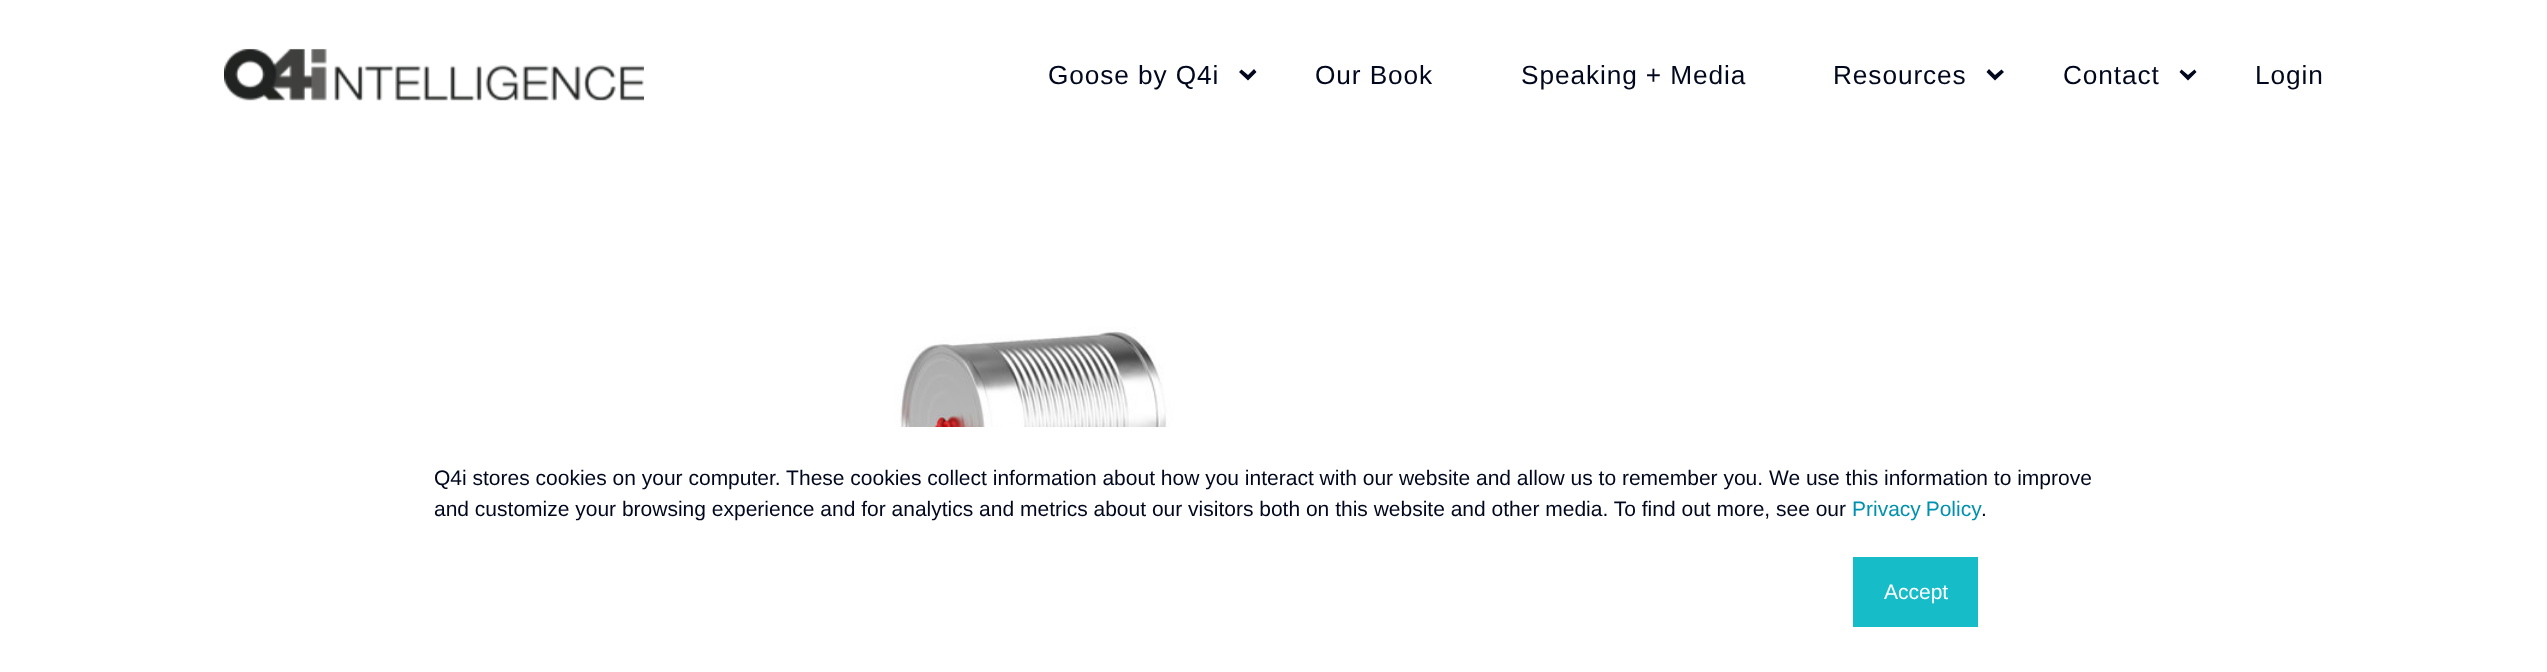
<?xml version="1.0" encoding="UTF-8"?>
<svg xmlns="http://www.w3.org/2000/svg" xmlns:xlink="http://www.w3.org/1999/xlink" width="2547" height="672">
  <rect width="100%" height="100%" fill="#ffffff" />
  <image x="224" y="48" width="420" height="53" xlink:href="image1.png" />
  <path d="M 1256.5 72 l -2.5 -3 l -6 6 l -6.5 -5.5 l -2.5 2.5 l 9 8.5 z" fill="#01071d" />
  <path d="M 2004 72 l -2.5 -2.5 l -6.5 5.5 l -6 -6 l -2.5 3 l 8.5 8.5 z" fill="#01071d" />
  <path d="M 2196.5 72 l -2 -2.5 l -6.5 5.5 l -6.5 -5.5 l -2 2.5 l 8.5 8.5 z" fill="#01071d" />
  <image x="365" y="327" width="824" height="100" xlink:href="image2.png" />
  <rect x="1853" y="557" width="125" height="70" fill="#17bcc9" />
  <text x="1048" y="84" style="font-family: Liberation Sans; font-size: 26.25px; letter-spacing: 0.9px; fill: #01071d">Goose by Q4i</text>
  <text x="1315" y="84" style="font-family: Liberation Sans; font-size: 26.25px; letter-spacing: 0.9px; fill: #01071d">Our Book</text>
  <text x="1521" y="84" style="font-family: Liberation Sans; font-size: 26.25px; letter-spacing: 0.9px; fill: #01071d">Speaking + Media</text>
  <text x="1833" y="84" style="font-family: Liberation Sans; font-size: 26.25px; letter-spacing: 0.9px; fill: #01071d">Resources</text>
  <text x="2063" y="84" style="font-family: Liberation Sans; font-size: 26.25px; letter-spacing: 0.9px; fill: #01071d">Contact</text>
  <text x="2255" y="84" style="font-family: Liberation Sans; font-size: 26.25px; letter-spacing: 0.9px; fill: #01071d">Login</text>
  <text x="434" y="485" style="font-family: Liberation Sans; font-size: 21px; fill: #01071d">Q4i stores cookies on your computer. These cookies collect information about how you interact with our website and allow us to remember you. We use this information to improve</text>
  <text x="434" y="516" style="font-family: Liberation Sans; font-size: 21px; fill: #01071d">and customize your browsing experience and for analytics and metrics about our visitors both on this website and other media. To find out more, see our</text>
  <text x="1852" y="516" word-spacing="-1" style="font-family: Liberation Sans; font-size: 21px; fill: #0091ae">Privacy Policy</text>
  <text x="1981" y="516" style="font-family: Liberation Sans; font-size: 21px; fill: #01071d">.</text>
  <text x="1884" y="599" style="font-family: Liberation Sans; font-size: 21px; fill: #ffffff">Accept</text>
</svg>
